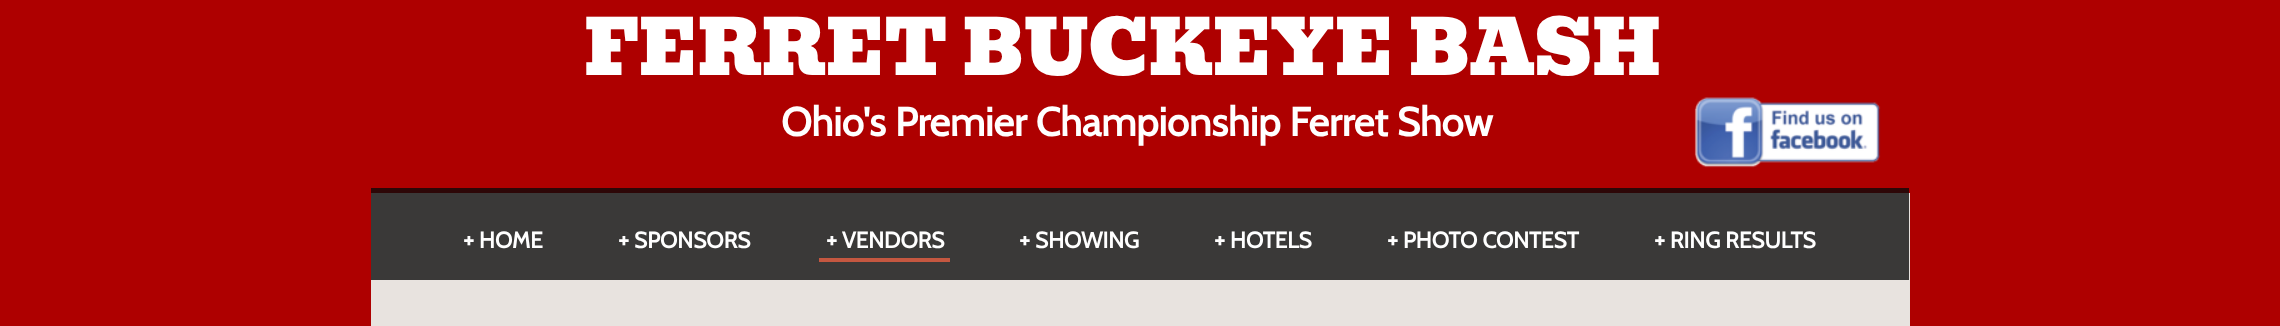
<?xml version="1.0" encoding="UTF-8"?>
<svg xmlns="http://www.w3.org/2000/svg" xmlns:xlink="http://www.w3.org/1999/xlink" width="2280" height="326">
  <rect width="100%" height="100%" fill="#ae0000" />
  <rect x="371" y="188" width="1538" height="5" fill="#2d0707" />
  <rect x="371" y="193" width="1539" height="133" fill="#e8e3df" />
  <rect x="371" y="193" width="1538" height="87" fill="#3a3938" />
  <image x="1694" y="97" width="187" height="71" xlink:href="image1.png" />
  <rect x="819" y="258" width="131" height="4" fill="#c45740" />
  <text x="584" y="75" style="font-family: Bevan; font-size: 75px; fill: #ffffff">FERRET BUCKEYE BASH</text>
  <text x="781" y="136" style="font-family: Cabin; font-size: 40px; font-weight: bold; fill: #ffffff">Ohio's Premier Championship Ferret Show</text>
  <text x="463" y="248" style="font-family: Cabin; font-size: 25px; font-weight: bold; fill: #ffffff">+</text>
  <text x="479" y="248" style="font-family: Cabin; font-size: 22.5px; font-weight: bold; fill: #ffffff">HOME</text>
  <text x="618" y="248" style="font-family: Cabin; font-size: 25px; font-weight: bold; fill: #ffffff">+</text>
  <text x="634" y="248" style="font-family: Cabin; font-size: 22.5px; font-weight: bold; fill: #ffffff">SPONSORS</text>
  <text x="826" y="248" style="font-family: Cabin; font-size: 25px; font-weight: bold; fill: #ffffff">+</text>
  <text x="842" y="248" style="font-family: Cabin; font-size: 22.5px; font-weight: bold; fill: #ffffff">VENDORS</text>
  <text x="1019" y="248" style="font-family: Cabin; font-size: 25px; font-weight: bold; fill: #ffffff">+</text>
  <text x="1035" y="248" style="font-family: Cabin; font-size: 22.5px; font-weight: bold; fill: #ffffff">SHOWING</text>
  <text x="1214" y="248" style="font-family: Cabin; font-size: 25px; font-weight: bold; fill: #ffffff">+</text>
  <text x="1230" y="248" style="font-family: Cabin; font-size: 22.5px; font-weight: bold; fill: #ffffff">HOTELS</text>
  <text x="1387" y="248" style="font-family: Cabin; font-size: 25px; font-weight: bold; fill: #ffffff">+</text>
  <text x="1403" y="248" style="font-family: Cabin; font-size: 22.5px; font-weight: bold; fill: #ffffff">PHOTO CONTEST</text>
  <text x="1654" y="248" style="font-family: Cabin; font-size: 25px; font-weight: bold; fill: #ffffff">+</text>
  <text x="1670" y="248" style="font-family: Cabin; font-size: 22.5px; font-weight: bold; fill: #ffffff">RING RESULTS</text>
</svg>
